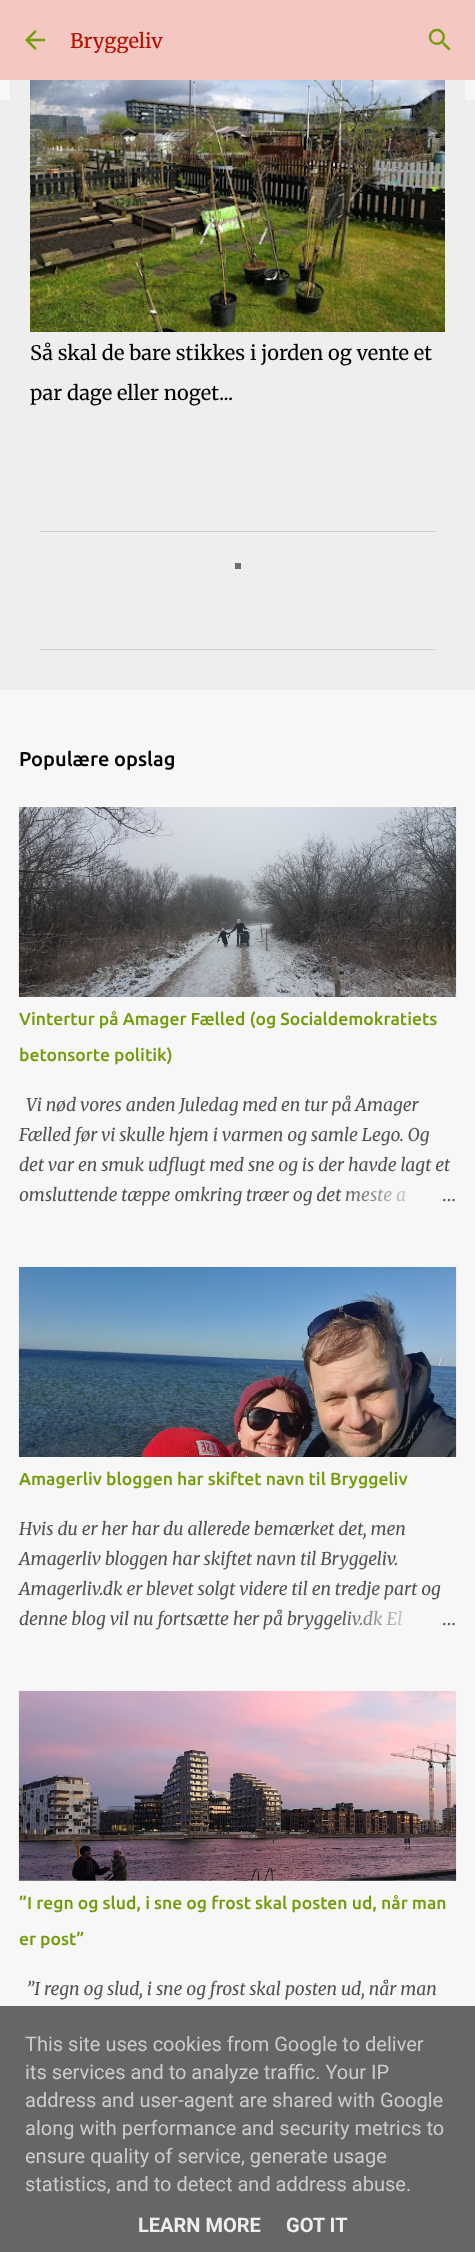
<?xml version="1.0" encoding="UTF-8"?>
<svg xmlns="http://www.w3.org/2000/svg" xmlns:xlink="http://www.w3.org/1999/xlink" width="475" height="2252">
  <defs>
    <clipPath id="clip1"><rect x="70" y="28" width="335" height="25" /></clipPath>
    <linearGradient id="g1" gradientUnits="userSpaceOnUse" x1="456" y1="1195" x2="336" y2="1195"><stop offset="0" stop-color="#f7f7f7" /><stop offset="0.2" stop-color="#f7f7f7" /><stop offset="1" stop-color="#f7f7f7" stop-opacity="0" /></linearGradient>
    <linearGradient id="g2" gradientUnits="userSpaceOnUse" x1="456" y1="1619" x2="336" y2="1619"><stop offset="0" stop-color="#f7f7f7" /><stop offset="0.2" stop-color="#f7f7f7" /><stop offset="1" stop-color="#f7f7f7" stop-opacity="0" /></linearGradient>
  </defs>
  <rect width="100%" height="100%" fill="#f7f7f7" />
  <rect width="475" height="80" fill="#f4c7c3" />
  <image x="25" y="30" width="20" height="20" xlink:href="image1.png" />
  <image x="428" y="28" width="23" height="23" xlink:href="image2.png" />
  <rect y="100" width="475" height="590" fill="#eeeeee" />
  <rect x="10" y="80" width="455" height="20" fill="#eeeeee" />
  <image x="30" y="80" width="415" height="252" xlink:href="image3.png" />
  <rect x="40" y="531" width="395" height="1" fill="#d2d2d2" />
  <rect x="40" y="649" width="395" height="1" fill="#d2d2d2" />
  <image x="18" y="807" width="439" height="190" xlink:href="image4.png" />
  <image x="18" y="1267" width="439" height="190" xlink:href="image5.png" />
  <image x="18" y="1690" width="439" height="191" xlink:href="image6.png" />
  <rect x="235" y="563" width="6" height="6" fill="#6d6d6d" />
  <rect y="2006" width="475" height="246" fill="#666666" />
  <g clip-path="url(#clip1)">
    <text x="70" y="48" style="font-family: Merriweather; font-size: 20px; font-weight: 500; fill: #b51200">Bryggeliv</text>
  </g>
  <text x="30" y="360" style="font-family: Merriweather; font-size: 20px; fill: #000000">Så skal de bare stikkes i jorden og vente et</text>
  <text x="30" y="400" style="font-family: Merriweather; font-size: 20px; fill: #000000">par dage eller noget...</text>
  <text x="19" y="766" style="font-family: Ubuntu; font-size: 20px; font-weight: 500; fill: #000000">Populære opslag</text>
  <text x="19" y="1025" style="font-family: Ubuntu; font-size: 17.5px; font-weight: 500; fill: #729c0b">Vintertur på Amager Fælled (og Socialdemokratiets</text>
  <text x="19" y="1061" style="font-family: Ubuntu; font-size: 17.5px; font-weight: 500; fill: #729c0b">betonsorte politik)</text>
  <text x="26" y="1111" style="font-family: Merriweather; font-size: 17.5px; font-style: italic; fill: #535353">Vi nød vores anden Juledag med en tur på Amager</text>
  <text x="19" y="1141" style="font-family: Merriweather; font-size: 17.5px; font-style: italic; fill: #535353">Fælled før vi skulle hjem i varmen og samle Lego. Og</text>
  <text x="19" y="1171" style="font-family: Merriweather; font-size: 17.5px; font-style: italic; fill: #535353">det var en smuk udflugt med sne og is der havde lagt et</text>
  <text x="19" y="1201" style="font-family: Merriweather; font-size: 17.5px; font-style: italic; fill: #535353">omsluttende tæppe omkring træer og det meste a</text>
  <rect x="338" y="1188" width="67" height="14" fill="url(#g1)" />
  <text x="442" y="1201" style="font-family: Merriweather; font-size: 17.5px; fill: #535353">…</text>
  <text x="19" y="1485" style="font-family: Ubuntu; font-size: 17.5px; font-weight: 500; fill: #729c0b">Amagerliv bloggen har skiftet navn til Bryggeliv</text>
  <text x="19" y="1535" style="font-family: Merriweather; font-size: 17.5px; font-style: italic; fill: #535353">Hvis du er her har du allerede bemærket det, men</text>
  <text x="19" y="1565" style="font-family: Merriweather; font-size: 17.5px; font-style: italic; fill: #535353">Amagerliv bloggen har skiftet navn til Bryggeliv.</text>
  <text x="19" y="1595" style="font-family: Merriweather; font-size: 17.5px; font-style: italic; fill: #535353">Amagerliv.dk er blevet solgt videre til en tredje part og</text>
  <text x="19" y="1625" style="font-family: Merriweather; font-size: 17.5px; font-style: italic; fill: #535353">denne blog vil nu fortsætte her på bryggeliv.dk El</text>
  <rect x="338" y="1610" width="64" height="16" fill="url(#g2)" />
  <text x="442" y="1625" style="font-family: Merriweather; font-size: 17.5px; fill: #535353">…</text>
  <text x="19" y="1909" style="font-family: Ubuntu; font-size: 17.5px; font-weight: 500; fill: #729c0b">”I regn og slud, i sne og frost skal posten ud, når man</text>
  <text x="19" y="1945" style="font-family: Ubuntu; font-size: 17.5px; font-weight: 500; fill: #729c0b">er post”</text>
  <text x="26" y="1995" style="font-family: Merriweather; font-size: 17.5px; font-style: italic; fill: #535353">”I regn og slud, i sne og frost skal posten ud, når man</text>
  <text x="25" y="2051" style="font-family: Roboto; font-size: 20px; fill: #cccccc">This site uses cookies from Google to deliver</text>
  <text x="25" y="2079" style="font-family: Roboto; font-size: 20px; fill: #cccccc">its services and to analyze traffic. Your IP</text>
  <text x="25" y="2107" style="font-family: Roboto; font-size: 20px; fill: #cccccc">address and user-agent are shared with Google</text>
  <text x="25" y="2135" style="font-family: Roboto; font-size: 20px; fill: #cccccc">along with performance and security metrics to</text>
  <text x="25" y="2163" style="font-family: Roboto; font-size: 20px; fill: #cccccc">ensure quality of service, generate usage</text>
  <text x="25" y="2191" style="font-family: Roboto; font-size: 20px; fill: #cccccc">statistics, and to detect and address abuse.</text>
  <text x="138" y="2232" style="font-family: Roboto; font-size: 20px; font-weight: bold; fill: #eeeeee">LEARN MORE</text>
  <text x="286" y="2232" style="font-family: Roboto; font-size: 20px; font-weight: bold; fill: #eeeeee">GOT IT</text>
</svg>
